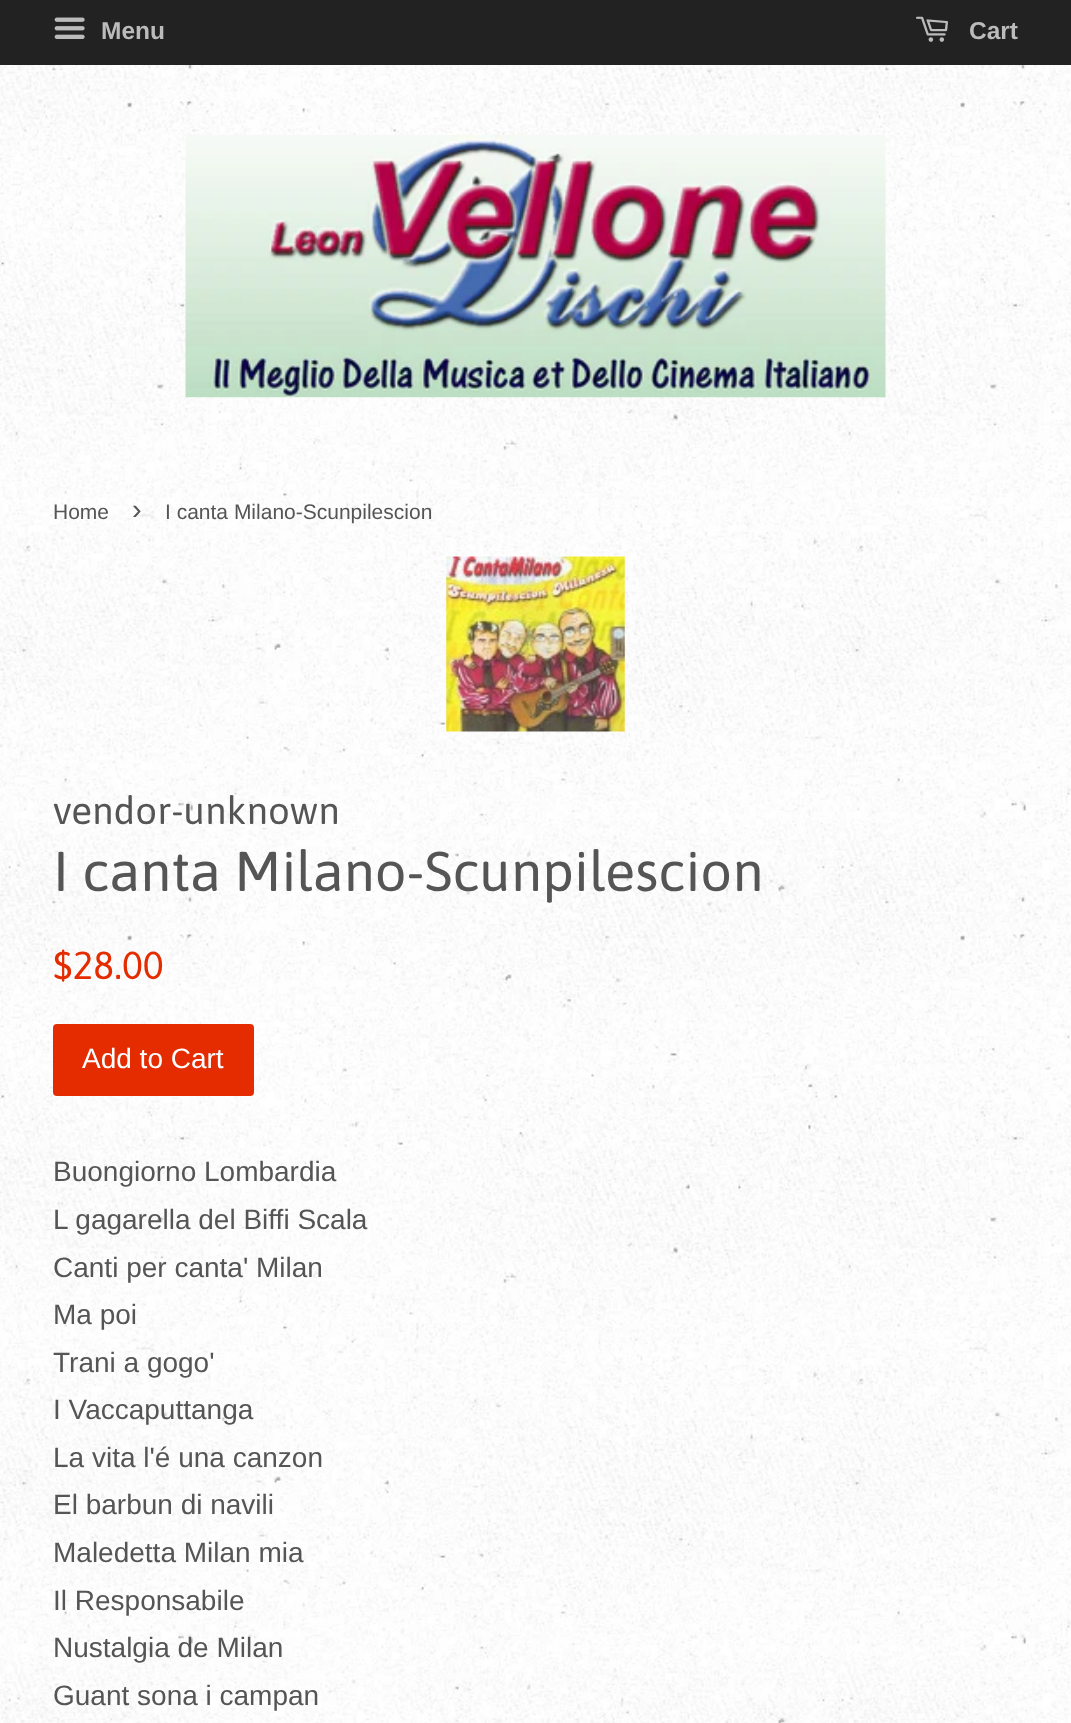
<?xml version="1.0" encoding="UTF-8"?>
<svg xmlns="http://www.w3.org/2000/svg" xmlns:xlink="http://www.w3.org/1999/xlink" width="1071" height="1723">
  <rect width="100%" height="100%" fill="#ffffff" />
  <image x="0" y="65" width="1071" height="1658" xlink:href="image1.png" />
  <rect width="1071" height="65" fill="#222222" />
  <image x="54" y="17" width="31" height="22" xlink:href="image2.png" />
  <image x="916" y="16" width="32" height="26" xlink:href="image3.png" />
  <image x="185" y="134" width="701" height="264" xlink:href="image4.png" />
  <image x="446" y="556" width="179" height="176" xlink:href="image5.png" />
  <rect x="53" y="1024" width="201" height="72" rx="4" fill="#e42c00" />
  <text x="101" y="39" style="font-family: Liberation Sans; font-size: 24.5px; font-weight: bold; fill: #bbbbbb">Menu</text>
  <text x="969" y="39" style="font-family: Liberation Sans; font-size: 24.5px; font-weight: bold; fill: #bbbbbb">Cart</text>
  <text x="53" y="519" style="font-family: Liberation Sans; font-size: 21px; fill: #555555">Home</text>
  <text x="132" y="519" style="font-family: Liberation Sans; font-size: 29px; fill: #555555">›</text>
  <text x="165" y="519" style="font-family: Liberation Sans; font-size: 21px; fill: #555555">I canta Milano-Scunpilescion</text>
  <text x="53" y="824" style="font-family: Asap; font-size: 38.5px; fill: #555555">vendor-unknown</text>
  <text x="53" y="891" style="font-family: Asap; font-size: 56px; fill: #555555">I canta Milano-Scunpilescion</text>
  <text x="53" y="979" style="font-family: Asap; font-size: 39px; fill: #e42c00">$28.00</text>
  <text x="82" y="1068" style="font-family: Liberation Sans; font-size: 28px; fill: #ffffff">Add to Cart</text>
  <text x="53" y="1181" style="font-family: Liberation Sans; font-size: 28px; fill: #555555">Buongiorno Lombardia</text>
  <text x="53" y="1229" style="font-family: Liberation Sans; font-size: 28px; fill: #555555">L gagarella del Biffi Scala</text>
  <text x="53" y="1277" style="font-family: Liberation Sans; font-size: 28px; fill: #555555">Canti per canta' Milan</text>
  <text x="53" y="1324" style="font-family: Liberation Sans; font-size: 28px; fill: #555555">Ma poi</text>
  <text x="53" y="1372" style="font-family: Liberation Sans; font-size: 28px; fill: #555555">Trani a gogo'</text>
  <text x="53" y="1419" style="font-family: Liberation Sans; font-size: 28px; fill: #555555">I Vaccaputtanga</text>
  <text x="53" y="1467" style="font-family: Liberation Sans; font-size: 28px; fill: #555555">La vita l'é una canzon</text>
  <text x="53" y="1514" style="font-family: Liberation Sans; font-size: 28px; fill: #555555">El barbun di navili</text>
  <text x="53" y="1562" style="font-family: Liberation Sans; font-size: 28px; fill: #555555">Maledetta Milan mia</text>
  <text x="53" y="1610" style="font-family: Liberation Sans; font-size: 28px; fill: #555555">Il Responsabile</text>
  <text x="53" y="1657" style="font-family: Liberation Sans; font-size: 28px; fill: #555555">Nustalgia de Milan</text>
  <text x="53" y="1705" style="font-family: Liberation Sans; font-size: 28px; fill: #555555">Guant sona i campan</text>
</svg>
